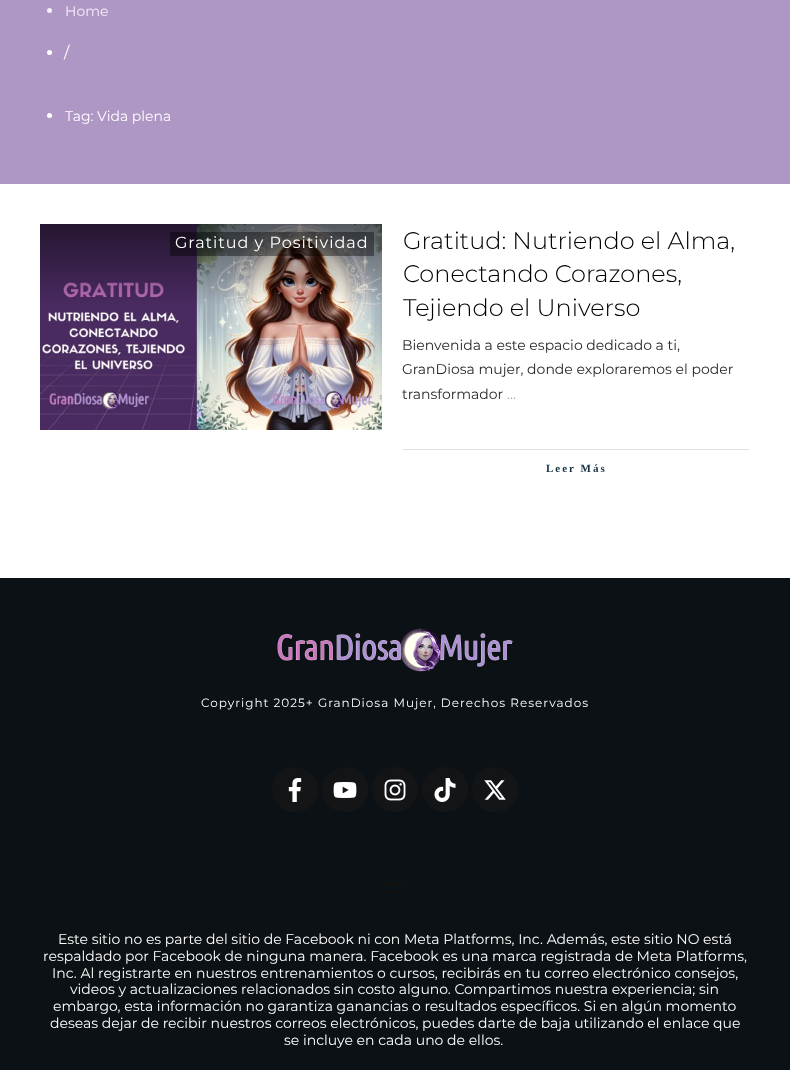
<?xml version="1.0" encoding="UTF-8"?>
<svg xmlns="http://www.w3.org/2000/svg" xmlns:xlink="http://www.w3.org/1999/xlink" width="790" height="1070">
  <defs>
    <linearGradient id="g1" gradientUnits="userSpaceOnUse" x1="273" y1="767" x2="317" y2="812"><stop offset="0.5" stop-color="#121416" /><stop offset="0.5" stop-color="#141516" /></linearGradient>
    <linearGradient id="g2" gradientUnits="userSpaceOnUse" x1="323" y1="767" x2="367" y2="812"><stop offset="0.5" stop-color="#121416" /><stop offset="0.5" stop-color="#141516" /></linearGradient>
    <linearGradient id="g3" gradientUnits="userSpaceOnUse" x1="373" y1="767" x2="417" y2="812"><stop offset="0.5" stop-color="#121416" /><stop offset="0.5" stop-color="#141516" /></linearGradient>
    <linearGradient id="g4" gradientUnits="userSpaceOnUse" x1="423" y1="767" x2="467" y2="812"><stop offset="0.5" stop-color="#121416" /><stop offset="0.5" stop-color="#141516" /></linearGradient>
    <linearGradient id="g5" gradientUnits="userSpaceOnUse" x1="473" y1="767" x2="517" y2="812"><stop offset="0.5" stop-color="#121416" /><stop offset="0.5" stop-color="#141516" /></linearGradient>
  </defs>
  <rect width="100%" height="100%" fill="#ffffff" />
  <rect width="790" height="184" fill="#af97c5" />
  <circle cx="49.5" cy="10.5" r="2.5" fill="#f3eff6" />
  <circle cx="49.5" cy="52.5" r="2.5" fill="#ffffff" />
  <circle cx="49.5" cy="115.5" r="2.5" fill="#ffffff" />
  <image x="40" y="224" width="342" height="206" xlink:href="image1.png" />
  <rect x="170" y="232" width="204" height="24" fill="#000000" fill-opacity="0.4" />
  <rect x="403" y="449" width="346" height="1" fill="#e0e0e0" />
  <rect y="578" width="790" height="492" fill="#0c1115" />
  <image x="277" y="628" width="236" height="44" xlink:href="image2.png" />
  <rect x="272" y="767" width="46" height="45" rx="22.5" fill="url(#g1)" />
  <image x="288" y="778" width="14" height="24" xlink:href="image3.png" />
  <rect x="322" y="767" width="46" height="45" rx="22.5" fill="url(#g2)" />
  <image x="333" y="782" width="24" height="16" xlink:href="image4.png" />
  <rect x="372" y="767" width="46" height="45" rx="22.5" fill="url(#g3)" />
  <image x="384" y="779" width="22" height="22" xlink:href="image5.png" />
  <rect x="422" y="767" width="46" height="45" rx="22.5" fill="url(#g4)" />
  <image x="434" y="778" width="22" height="24" xlink:href="image6.png" />
  <rect x="472" y="767" width="46" height="45" rx="22.5" fill="url(#g5)" />
  <image x="484" y="780" width="22" height="20" xlink:href="image7.png" />
  <image x="379" y="874" width="33" height="19" xlink:href="image8.png" />
  <text x="65" y="16" style="font-family: Montserrat; font-size: 14px; fill: #f3eff6">Home</text>
  <text x="64" y="58" style="font-family: Montserrat; font-size: 16px; fill: #ffffff">/</text>
  <text x="65" y="121" style="font-family: Montserrat; font-size: 14px; fill: #ffffff">Tag: Vida plena</text>
  <text x="175" y="248" style="font-family: Montserrat; font-size: 16px; letter-spacing: 1px; fill: #ffffff">Gratitud y Positividad</text>
  <text x="403" y="249" style="font-family: Montserrat; font-size: 24px; font-weight: 300; fill: #000000">Gratitud: Nutriendo el Alma,</text>
  <text x="403" y="282" style="font-family: Montserrat; font-size: 24px; font-weight: 300; fill: #000000">Conectando Corazones,</text>
  <text x="403" y="316" style="font-family: Montserrat; font-size: 24px; font-weight: 300; fill: #000000">Tejiendo el Universo</text>
  <text x="402" y="350" style="font-family: Montserrat; font-size: 14px; fill: #282828">Bienvenida a este espacio dedicado a ti,</text>
  <text x="402" y="374" style="font-family: Montserrat; font-size: 14px; fill: #282828">GranDiosa mujer, donde exploraremos el poder</text>
  <text x="402" y="399" style="font-family: Montserrat; font-size: 14px; fill: #282828">transformador</text>
  <text x="507" y="399" style="font-family: Montserrat; font-size: 14px; fill: #af97c5">...</text>
  <text x="546" y="472" style="font-family: Liberation Serif; font-size: 11px; font-weight: bold; letter-spacing: 2px; fill: #163143">Leer Más</text>
  <text x="201" y="707" style="font-family: Montserrat; font-size: 12px; letter-spacing: 1px; fill: #ffffff">Copyright 2025+ GranDiosa Mujer, Derechos Reservados</text>
  <text x="58" y="944" style="font-family: Montserrat; font-size: 14px; fill: #ffffff">Este sitio no es parte del sitio de Facebook ni con Meta Platforms, Inc. Además, este sitio NO está</text>
  <text x="43" y="961" style="font-family: Montserrat; font-size: 14px; fill: #ffffff">respaldado por Facebook de ninguna manera. Facebook es una marca registrada de Meta Platforms,</text>
  <text x="52" y="978" style="font-family: Montserrat; font-size: 14px; fill: #ffffff">Inc. Al registrarte en nuestros entrenamientos o cursos, recibirás en tu correo electrónico consejos,</text>
  <text x="70" y="994" style="font-family: Montserrat; font-size: 14px; fill: #ffffff">videos y actualizaciones relacionados sin costo alguno. Compartimos nuestra experiencia; sin</text>
  <text x="53" y="1011" style="font-family: Montserrat; font-size: 14px; fill: #ffffff">embargo, esta información no garantiza ganancias o resultados específicos. Si en algún momento</text>
  <text x="50" y="1028" style="font-family: Montserrat; font-size: 14px; fill: #ffffff">deseas dejar de recibir nuestros correos electrónicos, puedes darte de baja utilizando el enlace que</text>
  <text x="284" y="1045" style="font-family: Montserrat; font-size: 14px; fill: #ffffff">se incluye en cada uno de ellos.</text>
</svg>
